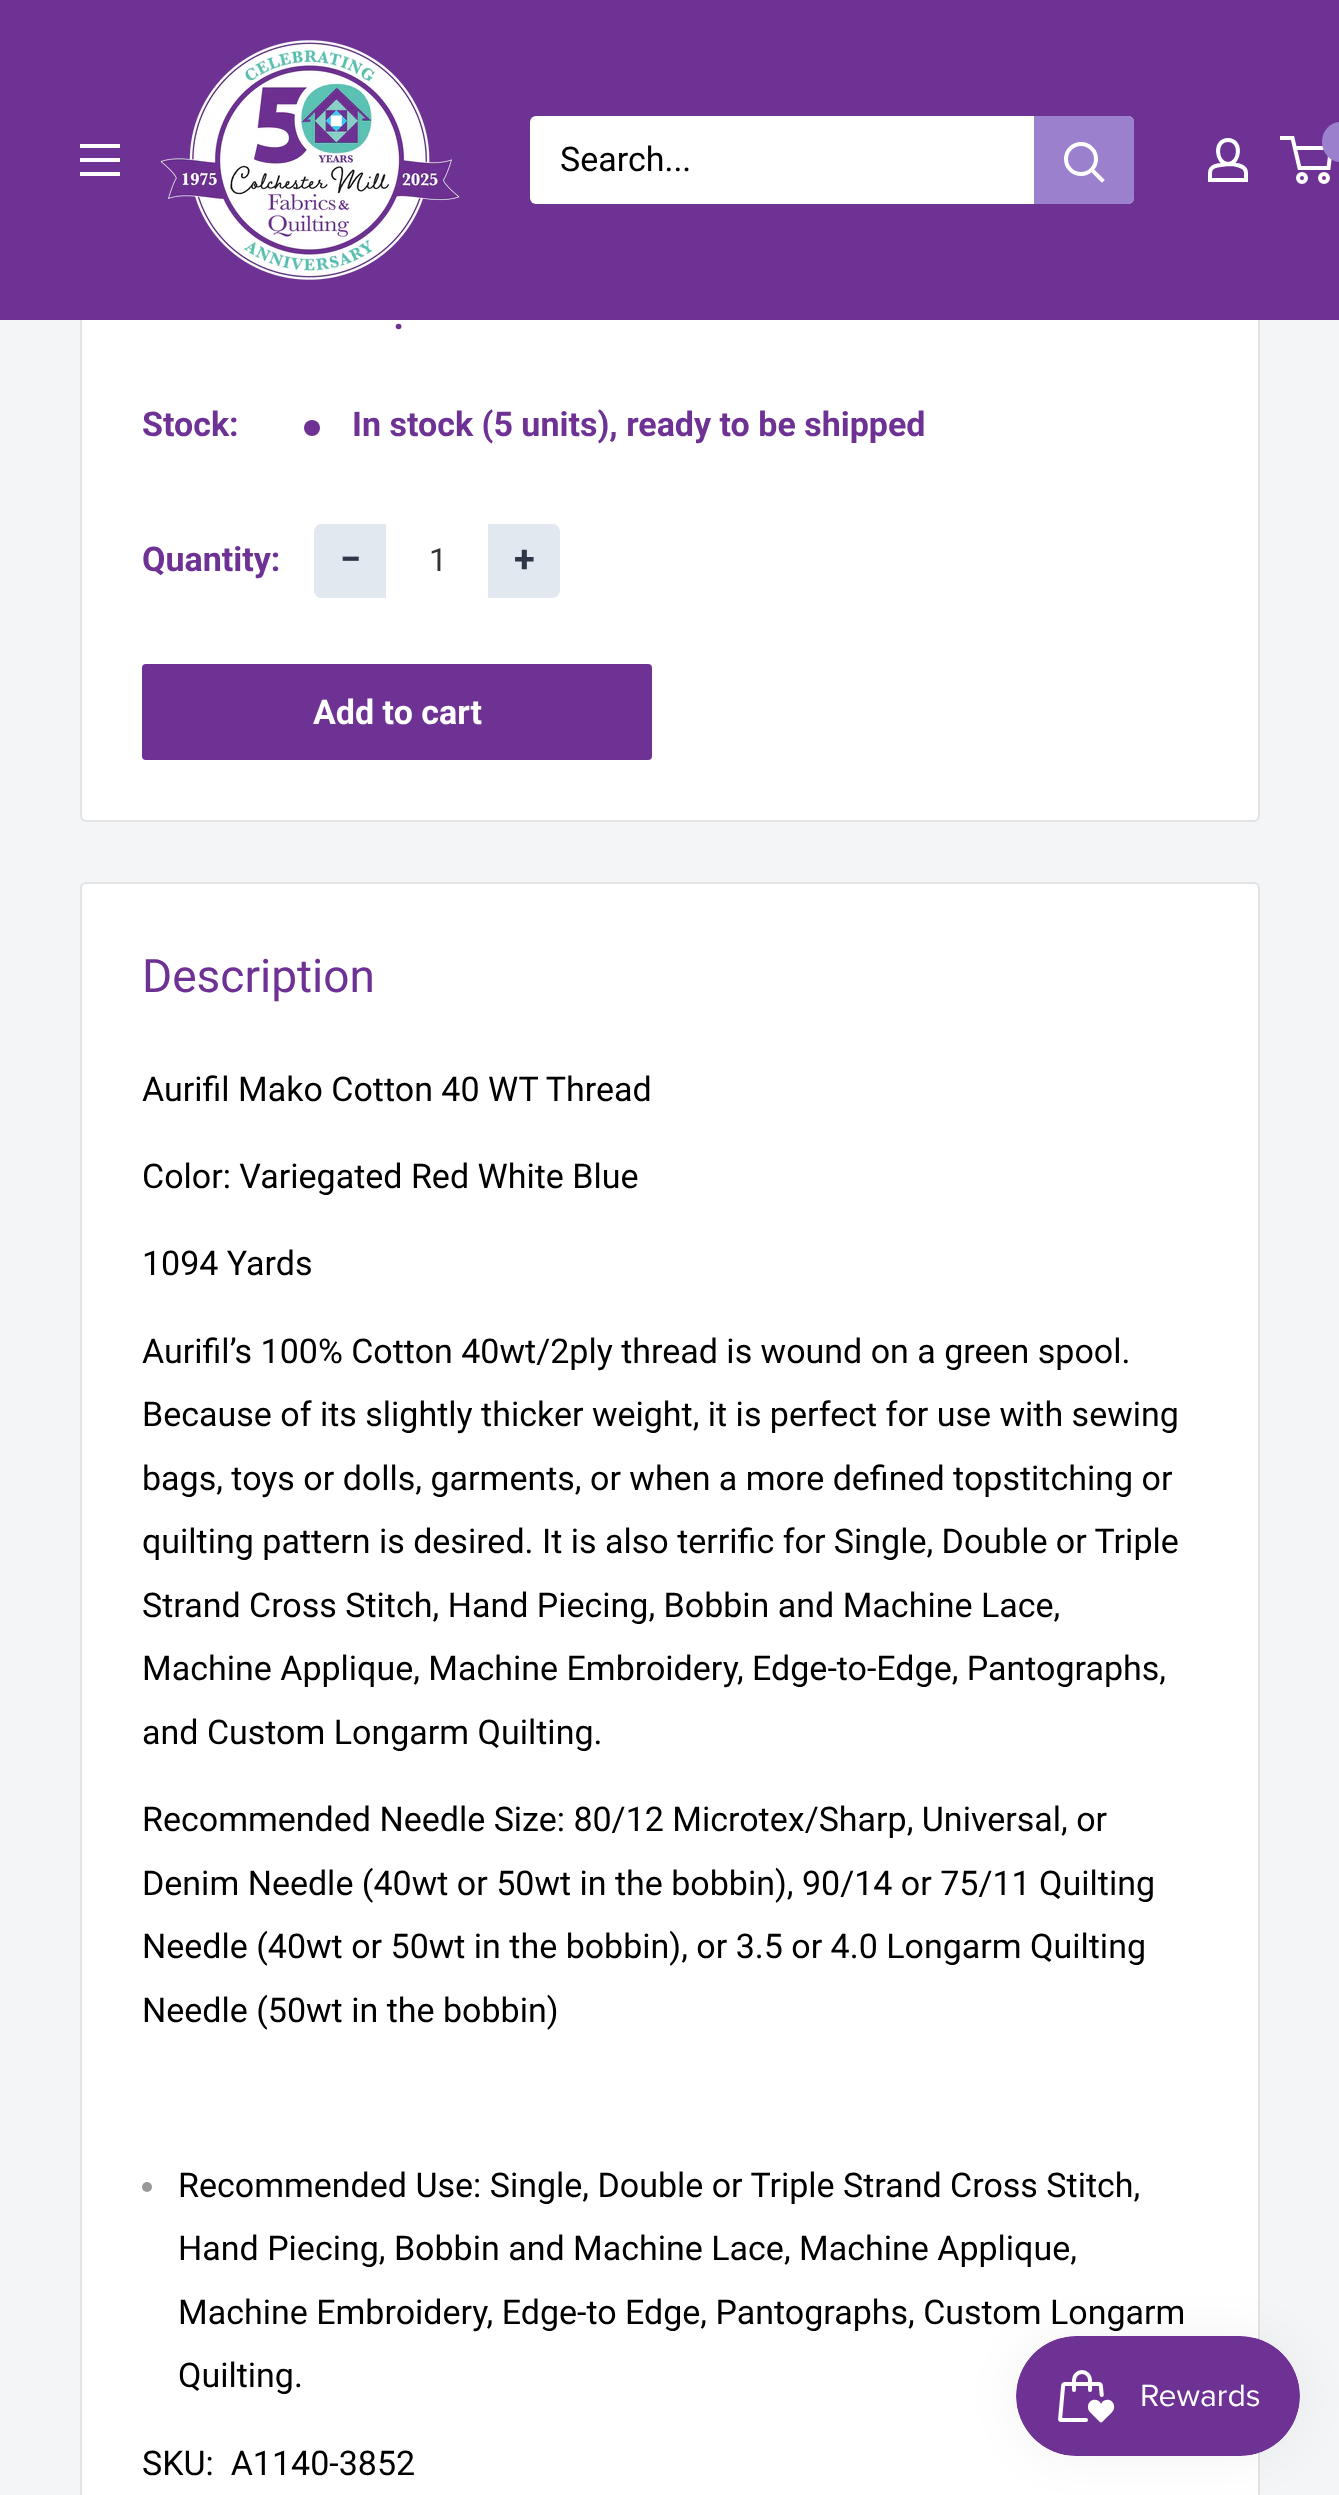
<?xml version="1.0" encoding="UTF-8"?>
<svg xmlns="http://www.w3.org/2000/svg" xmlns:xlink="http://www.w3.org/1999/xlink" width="1339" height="2495">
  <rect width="100%" height="100%" fill="#f3f5f6" />
  <rect x="80" y="-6" width="1180" height="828" rx="6" fill="#ffffff" />
  <path d="M 86 -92 h 1168 c 3 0 6 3 6 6 v 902 c 0 3 -3 6 -6 6 h -1168 c -3 0 -6 -3 -6 -6 v -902 c 0 -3 3 -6 6 -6 z m 0 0 h 1168 c 2 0 4 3 4 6 v 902 c 0 2 -2 4 -4 4 h -1168 c -2 0 -4 -2 -4 -4 v -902 c 0 -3 2 -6 4 -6 z" fill="#e1e3e4" fill-rule="evenodd" />
  <rect width="1339" height="320" fill="#6e3294" />
  <path d="M 80 172 h 40 v 4 h -40 z m 0 -28 h 40 v 4 h -40 z m 0 14 h 40 v 4 h -40 z" fill="#ffffff" fill-rule="evenodd" />
  <image x="160" y="40" width="300" height="240" xlink:href="image1.png" />
  <rect x="530" y="116" width="604" height="88" rx="6" fill="#ffffff" />
  <path d="M 1034 116 h 94 c 3.5 0 6 2.5 6 6 v 76 c 0 3.5 -2.5 6 -6 6 h -94 z" fill="#9b81cd" />
  <path d="M 1102 180 l -10 -10" fill="none" stroke="#ffffff" stroke-width="4" stroke-linecap="square" />
  <circle cx="1081" cy="159" r="15" fill="none" stroke="#ffffff" stroke-width="4" />
  <path d="M 1228 164 c 4 0 7.5 0.5 11 1.5 c 8.5 2.5 7 7 7 14.5 h -36 c 0 -8 -1.5 -12.5 7.5 -14.5 z m 0 0 c -12 0 -14.5 -24 0 -24 c 14.5 0 12 24 0 24 z" fill="none" stroke="#ffffff" stroke-width="4" />
  <circle cx="1302" cy="178" r="4" fill="none" stroke="#ffffff" stroke-width="4" />
  <circle cx="1324" cy="178" r="4" fill="none" stroke="#ffffff" stroke-width="4" />
  <path d="M 1294.5 148 h 36.5 l -2.5 20 h -29 l -7 -30 h -12.5" fill="none" stroke="#ffffff" stroke-width="4" />
  <rect x="1322" y="122" width="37" height="40" rx="20" fill="#9b81cd" />
  <circle cx="312" cy="428" r="8" fill="#6e3294" />
  <path d="M 322 524 h 64 v 74 h -64 c -4.5 0 -8 -3.5 -8 -8 v -58 c 0 -4.5 3.5 -8 8 -8 z" fill="#e2e8f0" />
  <path d="M 488 524 h 64 c 4.5 0 8 3.5 8 8 v 58 c 0 4.5 -3.5 8 -8 8 h -64 z" fill="#e2e8f0" />
  <rect x="142" y="664" width="510" height="96" rx="4" fill="#6e3294" />
  <rect x="81" y="883" width="1178" height="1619" rx="5" fill="#ffffff" stroke="#e1e3e4" stroke-width="2" />
  <circle cx="147" cy="2187" r="5" fill="#999999" />
  <rect x="1016" y="2336" width="284" height="120" rx="60" fill="#000000" fill-opacity="0.05" filter="blur(25px)" />
  <image x="1016" y="2336" width="284" height="120" xlink:href="image2.png" />
  <text x="560" y="171" style="font-family: Roboto; font-size: 34px; fill: #000000">Search...</text>
  <text x="392" y="329" style="font-family: Roboto; font-size: 52px; fill: #6e3294">.</text>
  <text x="142" y="436" style="font-family: Roboto; font-size: 34px; font-weight: bold; fill: #6e3294">Stock:</text>
  <text x="352" y="436" style="font-family: Roboto; font-size: 34px; font-weight: bold; fill: #6e3294">In stock (5 units), ready to be shipped</text>
  <text x="142" y="571" style="font-family: Roboto; font-size: 34px; font-weight: bold; fill: #6e3294">Quantity:</text>
  <text x="340" y="572" style="font-family: Roboto; font-size: 38px; font-weight: bold; fill: #2d3748">−</text>
  <text x="429" y="571" style="font-family: Roboto; font-size: 32px; fill: #333333">1</text>
  <text x="514" y="572" style="font-family: Roboto; font-size: 38px; font-weight: bold; fill: #2d3748">+</text>
  <text x="313" y="724" style="font-family: Roboto; font-size: 34px; font-weight: bold; fill: #ffffff">Add to cart</text>
  <text x="142" y="992" style="font-family: Roboto; font-size: 46px; fill: #6e3294">Description</text>
  <text x="142" y="1101" style="font-family: Roboto; font-size: 34px; fill: #000000">Aurifil Mako Cotton 40 WT Thread</text>
  <text x="142" y="1188" style="font-family: Roboto; font-size: 34px; fill: #000000">Color: Variegated Red White Blue</text>
  <text x="142" y="1275" style="font-family: Roboto; font-size: 34px; fill: #000000">1094 Yards</text>
  <text x="142" y="1363" style="font-family: Roboto; font-size: 34px; fill: #000000">Aurifil’s 100% Cotton 40wt/2ply thread is wound on a green spool.</text>
  <text x="142" y="1426" style="font-family: Roboto; font-size: 34px; fill: #000000">Because of its slightly thicker weight, it is perfect for use with sewing</text>
  <text x="142" y="1490" style="font-family: Roboto; font-size: 34px; fill: #000000">bags, toys or dolls, garments, or when a more defined topstitching or</text>
  <text x="142" y="1553" style="font-family: Roboto; font-size: 34px; fill: #000000">quilting pattern is desired. It is also terrific for Single, Double or Triple</text>
  <text x="142" y="1617" style="font-family: Roboto; font-size: 34px; fill: #000000">Strand Cross Stitch, Hand Piecing, Bobbin and Machine Lace,</text>
  <text x="142" y="1680" style="font-family: Roboto; font-size: 34px; fill: #000000">Machine Applique, Machine Embroidery, Edge-to-Edge, Pantographs,</text>
  <text x="142" y="1744" style="font-family: Roboto; font-size: 34px; fill: #000000">and Custom Longarm Quilting.</text>
  <text x="142" y="1831" style="font-family: Roboto; font-size: 34px; fill: #000000">Recommended Needle Size: 80/12 Microtex/Sharp, Universal, or</text>
  <text x="142" y="1895" style="font-family: Roboto; font-size: 34px; fill: #000000">Denim Needle (40wt or 50wt in the bobbin), 90/14 or 75/11 Quilting</text>
  <text x="142" y="1958" style="font-family: Roboto; font-size: 34px; fill: #000000">Needle (40wt or 50wt in the bobbin), or 3.5 or 4.0 Longarm Quilting</text>
  <text x="142" y="2022" style="font-family: Roboto; font-size: 34px; fill: #000000">Needle (50wt in the bobbin)</text>
  <text x="178" y="2197" style="font-family: Roboto; font-size: 34px; fill: #000000">Recommended Use: Single, Double or Triple Strand Cross Stitch,</text>
  <text x="178" y="2260" style="font-family: Roboto; font-size: 34px; fill: #000000">Hand Piecing, Bobbin and Machine Lace, Machine Applique,</text>
  <text x="178" y="2324" style="font-family: Roboto; font-size: 34px; fill: #000000">Machine Embroidery, Edge-to Edge, Pantographs, Custom Longarm</text>
  <text x="178" y="2387" style="font-family: Roboto; font-size: 34px; fill: #000000">Quilting.</text>
  <text x="142" y="2475" style="font-family: Roboto; font-size: 34px; fill: #000000" xml:space="preserve">SKU:  A1140-3852</text>
</svg>
